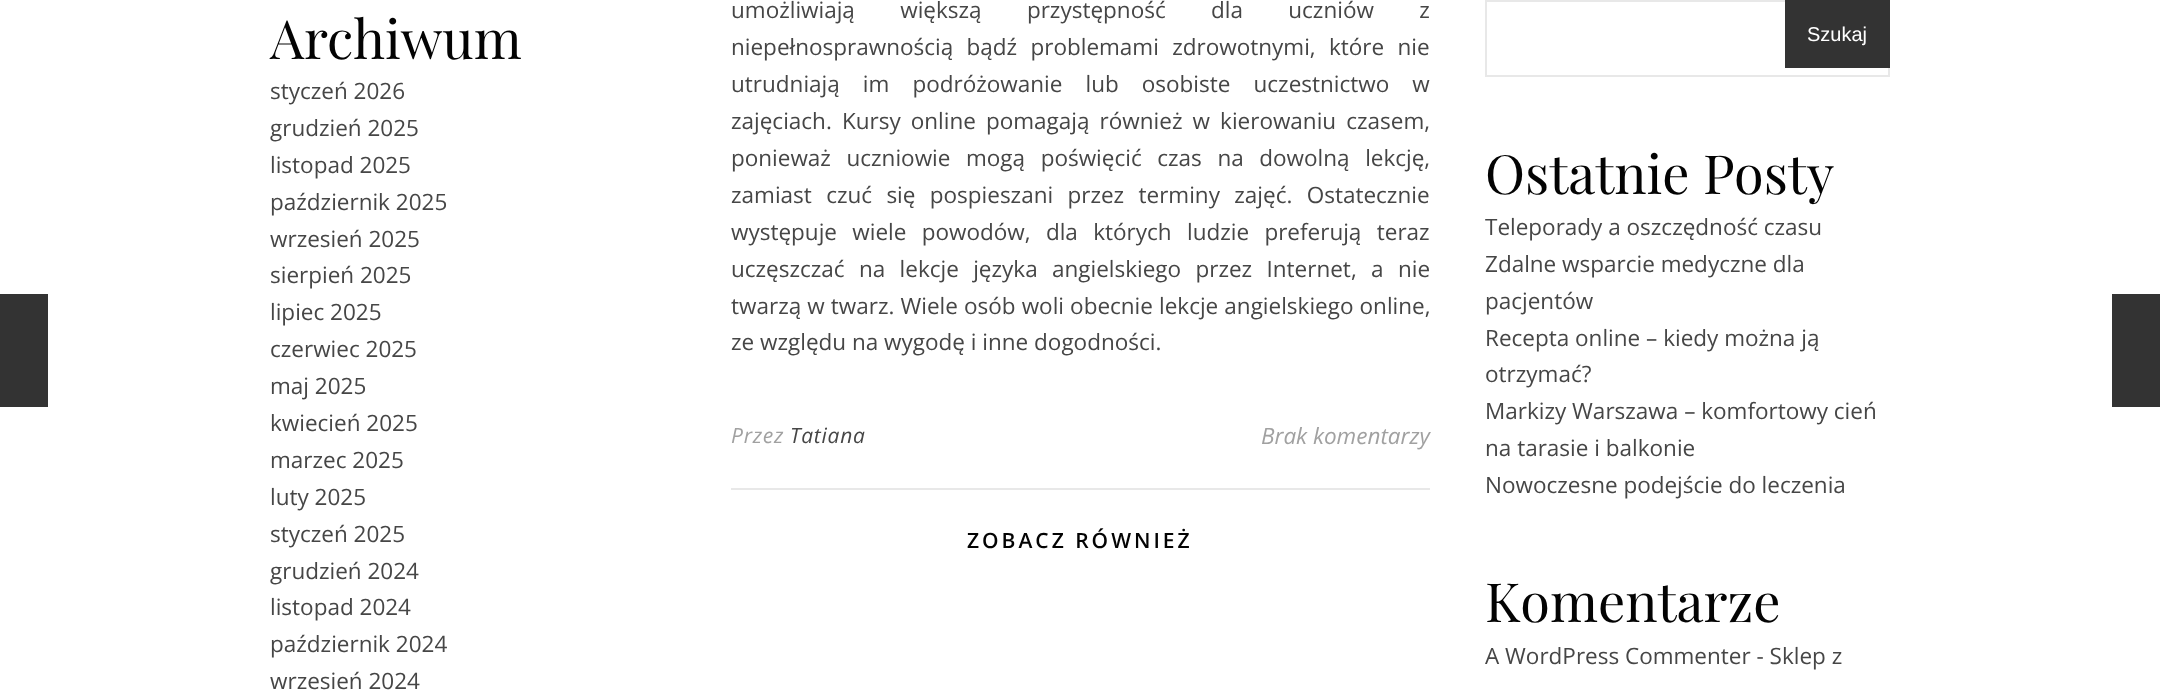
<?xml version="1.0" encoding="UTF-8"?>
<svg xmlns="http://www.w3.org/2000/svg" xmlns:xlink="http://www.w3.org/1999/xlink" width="2160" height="695">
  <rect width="100%" height="100%" fill="#ffffff" />
  <rect y="294" width="48" height="113" fill="#333333" />
  <rect x="731" y="488" width="699" height="2" fill="#e8e8e8" />
  <rect x="2112" y="294" width="48" height="113" fill="#333333" />
  <rect x="1486" y="1" width="403" height="75" fill="none" stroke="#e8e8e8" stroke-width="2" />
  <rect x="1785" width="105" height="68" fill="#333333" />
  <text x="270" y="59" style="font-family: Playfair Display; font-size: 54px; fill: #030303">Archiwum</text>
  <text x="270" y="99" style="font-family: Open Sans; font-size: 22.5px; fill: #464646">styczeń 2026</text>
  <text x="270" y="136" style="font-family: Open Sans; font-size: 22.5px; fill: #464646">grudzień 2025</text>
  <text x="270" y="173" style="font-family: Open Sans; font-size: 22.5px; fill: #464646">listopad 2025</text>
  <text x="270" y="210" style="font-family: Open Sans; font-size: 22.5px; fill: #464646">październik 2025</text>
  <text x="270" y="247" style="font-family: Open Sans; font-size: 22.5px; fill: #464646">wrzesień 2025</text>
  <text x="270" y="283" style="font-family: Open Sans; font-size: 22.5px; fill: #464646">sierpień 2025</text>
  <text x="270" y="320" style="font-family: Open Sans; font-size: 22.5px; fill: #464646">lipiec 2025</text>
  <text x="270" y="357" style="font-family: Open Sans; font-size: 22.5px; fill: #464646">czerwiec 2025</text>
  <text x="270" y="394" style="font-family: Open Sans; font-size: 22.5px; fill: #464646">maj 2025</text>
  <text x="270" y="431" style="font-family: Open Sans; font-size: 22.5px; fill: #464646">kwiecień 2025</text>
  <text x="270" y="468" style="font-family: Open Sans; font-size: 22.5px; fill: #464646">marzec 2025</text>
  <text x="270" y="505" style="font-family: Open Sans; font-size: 22.5px; fill: #464646">luty 2025</text>
  <text x="270" y="542" style="font-family: Open Sans; font-size: 22.5px; fill: #464646">styczeń 2025</text>
  <text x="270" y="579" style="font-family: Open Sans; font-size: 22.5px; fill: #464646">grudzień 2024</text>
  <text x="270" y="615" style="font-family: Open Sans; font-size: 22.5px; fill: #464646">listopad 2024</text>
  <text x="270" y="652" style="font-family: Open Sans; font-size: 22.5px; fill: #464646">październik 2024</text>
  <text x="270" y="689" style="font-family: Open Sans; font-size: 22.5px; fill: #464646">wrzesień 2024</text>
  <text x="731" y="18" word-spacing="39.5" style="font-family: Open Sans; font-size: 22.5px; fill: #464646">umożliwiają większą przystępność dla uczniów z</text>
  <text x="731" y="55" word-spacing="7.5" style="font-family: Open Sans; font-size: 22.5px; fill: #464646">niepełnosprawnością bądź problemami zdrowotnymi, które nie</text>
  <text x="731" y="92" word-spacing="17.25" style="font-family: Open Sans; font-size: 22.5px; fill: #464646">utrudniają im podróżowanie lub osobiste uczestnictwo w</text>
  <text x="731" y="129" word-spacing="4.25" style="font-family: Open Sans; font-size: 22.5px; fill: #464646">zajęciach. Kursy online pomagają również w kierowaniu czasem,</text>
  <text x="731" y="166" word-spacing="9.75" style="font-family: Open Sans; font-size: 22.5px; fill: #464646">ponieważ uczniowie mogą poświęcić czas na dowolną lekcję,</text>
  <text x="731" y="203" word-spacing="8.5" style="font-family: Open Sans; font-size: 22.5px; fill: #464646">zamiast czuć się pospieszani przez terminy zajęć. Ostatecznie</text>
  <text x="731" y="240" word-spacing="9.5" style="font-family: Open Sans; font-size: 22.5px; fill: #464646">występuje wiele powodów, dla których ludzie preferują teraz</text>
  <text x="731" y="277" word-spacing="8.5" style="font-family: Open Sans; font-size: 22.5px; fill: #464646">uczęszczać na lekcje języka angielskiego przez Internet, a nie</text>
  <text x="731" y="314" word-spacing="0.25" style="font-family: Open Sans; font-size: 22.5px; fill: #464646">twarzą w twarz. Wiele osób woli obecnie lekcje angielskiego online,</text>
  <text x="731" y="350" style="font-family: Open Sans; font-size: 22.5px; fill: #464646">ze względu na wygodę i inne dogodności.</text>
  <text x="731" y="443" style="font-family: Open Sans; font-size: 21px; font-style: italic; letter-spacing: 0.75px; fill: #a1a1a1">Przez</text>
  <text x="790" y="443" style="font-family: Open Sans; font-size: 21px; font-style: italic; letter-spacing: 0.75px; fill: #464646">Tatiana</text>
  <text x="1261" y="444" style="font-family: Open Sans; font-size: 22.5px; font-style: italic; fill: #a1a1a1">Brak komentarzy</text>
  <text x="967" y="548" style="font-family: Open Sans; font-size: 21px; font-weight: 600; letter-spacing: 3px; fill: #030303">ZOBACZ RÓWNIEŻ</text>
  <text x="1807" y="41" style="font-family: Liberation Sans; font-size: 20px; fill: #ffffff">Szukaj</text>
  <text x="1485" y="194" style="font-family: Playfair Display; font-size: 54px; fill: #030303">Ostatnie Posty</text>
  <text x="1485" y="235" style="font-family: Open Sans; font-size: 22.5px; fill: #464646">Teleporady a oszczędność czasu</text>
  <text x="1485" y="272" style="font-family: Open Sans; font-size: 22.5px; fill: #464646">Zdalne wsparcie medyczne dla</text>
  <text x="1485" y="309" style="font-family: Open Sans; font-size: 22.5px; fill: #464646">pacjentów</text>
  <text x="1485" y="346" style="font-family: Open Sans; font-size: 22.5px; fill: #464646">Recepta online – kiedy można ją</text>
  <text x="1485" y="382" style="font-family: Open Sans; font-size: 22.5px; fill: #464646">otrzymać?</text>
  <text x="1485" y="419" style="font-family: Open Sans; font-size: 22.5px; fill: #464646">Markizy Warszawa – komfortowy cień</text>
  <text x="1485" y="456" style="font-family: Open Sans; font-size: 22.5px; fill: #464646">na tarasie i balkonie</text>
  <text x="1485" y="493" style="font-family: Open Sans; font-size: 22.5px; fill: #464646">Nowoczesne podejście do leczenia</text>
  <text x="1485" y="622" style="font-family: Playfair Display; font-size: 54px; fill: #030303">Komentarze</text>
  <text x="1485" y="664" style="font-family: Open Sans; font-size: 22.5px; fill: #464646">A WordPress Commenter - Sklep z</text>
</svg>
